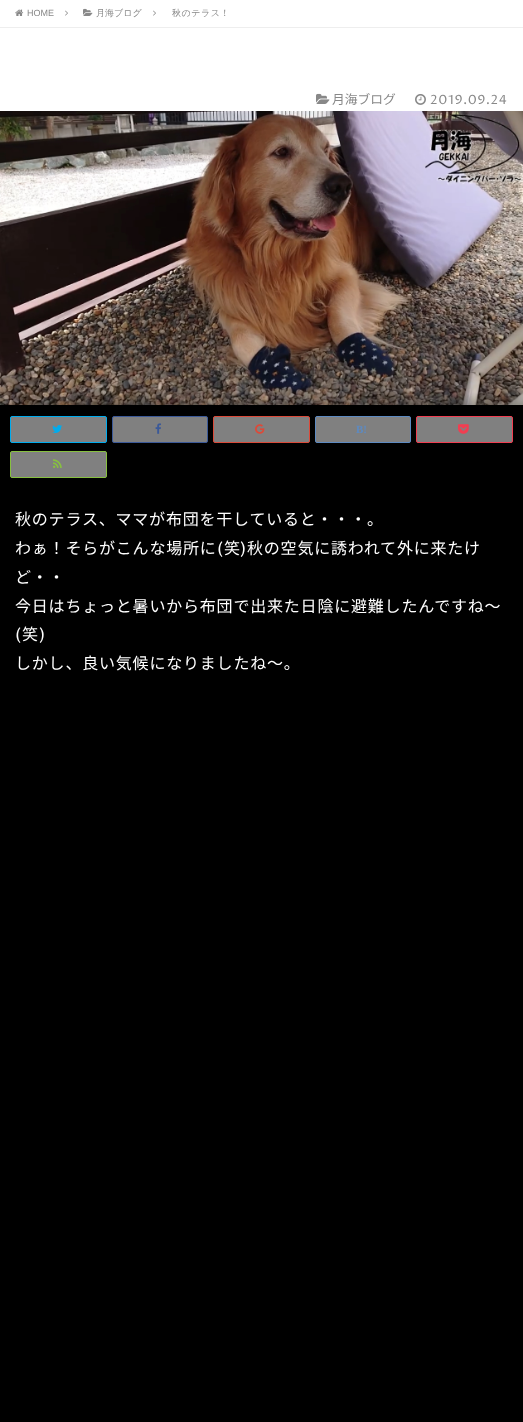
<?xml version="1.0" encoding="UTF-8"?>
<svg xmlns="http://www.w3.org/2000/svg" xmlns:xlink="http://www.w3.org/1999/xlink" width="523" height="1422">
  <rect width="100%" height="100%" fill="#000000" />
  <rect width="523" height="27" fill="#ffffff" />
  <rect y="27" width="523" height="1" fill="#eeeeee" />
  <image x="15" y="9" width="9" height="7" xlink:href="image1.png" />
  <image x="65" y="10" width="3" height="6" xlink:href="image2.png" />
  <image x="83" y="8" width="10" height="8" xlink:href="image3.png" />
  <image x="153" y="10" width="3" height="6" xlink:href="image2.png" />
  <rect y="28" width="523" height="83" fill="#ffffff" />
  <image x="316" y="93" width="14" height="11" xlink:href="image4.png" />
  <image x="415" y="94" width="11" height="11" xlink:href="image5.png" />
  <image x="0" y="111" width="523" height="294" xlink:href="image6.png" />
  <rect x="10.5" y="416.5" width="96" height="26" rx="1.5" fill="#808080" stroke="#00acee" />
  <image x="52" y="425" width="10" height="8" xlink:href="image7.png" />
  <rect x="112.5" y="416.5" width="95" height="26" rx="1.5" fill="#808080" stroke="#3b5998" />
  <image x="155" y="423" width="6" height="11" xlink:href="image8.png" />
  <rect x="213.5" y="416.5" width="96" height="26" rx="1.5" fill="#808080" stroke="#db4a39" />
  <image x="255" y="424" width="10" height="10" xlink:href="image9.png" />
  <rect x="315.5" y="416.5" width="95" height="26" rx="1.5" fill="#808080" stroke="#5d8ac1" />
  <rect x="416.5" y="416.5" width="96" height="26" rx="1.5" fill="#808080" stroke="#f03e51" />
  <image x="458" y="424" width="11" height="10" xlink:href="image10.png" />
  <rect x="10.5" y="451.5" width="96" height="26" rx="1.5" fill="#808080" stroke="#87c040" />
  <image x="53" y="459" width="9" height="9" xlink:href="image11.png" />
  <text x="27" y="16" style="font-family: Liberation Sans; font-size: 9px; fill: #888888">HOME</text>
  <text x="96" y="16" style="font-family: WenQuanYi Zen Hei; font-size: 9px; font-weight: 500; fill: #888888">月海ブログ</text>
  <text x="172" y="16" style="font-family: WenQuanYi Zen Hei; font-size: 9px; font-weight: 500; letter-spacing: 0.5px; fill: #888888">秋のテラス！</text>
  <text x="332" y="104" style="font-family: Noto Sans JP; font-size: 12.75px; fill: #888888">月海ブログ</text>
  <text x="430" y="104" style="font-family: Proza Libre; font-size: 12.75px; letter-spacing: 0.6px; fill: #888888">2019.09.24</text>
  <text x="356" y="433" style="font-family: Liberation Serif; font-size: 11px; font-weight: bold; fill: #5d8ac1">B!</text>
  <text x="15" y="525" style="font-family: Noto Sans JP; font-size: 16px; letter-spacing: 0.8px; fill: #ffffff">秋のテラス、ママが布団を干していると・・・。</text>
  <text x="15" y="554" style="font-family: Noto Sans JP; font-size: 16px; letter-spacing: 0.8px; fill: #ffffff">わぁ！そらがこんな場所に</text>
  <text x="217" y="554" style="font-family: Proza Libre; font-size: 16px; letter-spacing: 0.8px; fill: #ffffff">(</text>
  <text x="224" y="554" style="font-family: Noto Sans JP; font-size: 16px; letter-spacing: 0.8px; fill: #ffffff">笑</text>
  <text x="240" y="554" style="font-family: Proza Libre; font-size: 16px; letter-spacing: 0.8px; fill: #ffffff">)</text>
  <text x="247" y="554" style="font-family: Noto Sans JP; font-size: 16px; letter-spacing: 0.8px; fill: #ffffff">秋の空気に誘われて外に来たけ</text>
  <text x="15" y="583" style="font-family: Noto Sans JP; font-size: 16px; letter-spacing: 0.8px; fill: #ffffff">ど・・</text>
  <text x="15" y="612" style="font-family: Noto Sans JP; font-size: 16px; letter-spacing: 0.8px; fill: #ffffff">今日はちょっと暑いから布団で出来た日陰に避難したんですね～</text>
  <text x="15" y="640" style="font-family: Proza Libre; font-size: 16px; letter-spacing: 0.8px; fill: #ffffff">(</text>
  <text x="22" y="640" style="font-family: Noto Sans JP; font-size: 16px; letter-spacing: 0.8px; fill: #ffffff">笑</text>
  <text x="39" y="640" style="font-family: Proza Libre; font-size: 16px; letter-spacing: 0.8px; fill: #ffffff">)</text>
  <text x="15" y="669" style="font-family: Noto Sans JP; font-size: 16px; letter-spacing: 0.8px; fill: #ffffff">しかし、良い気候になりましたね～。</text>
</svg>
